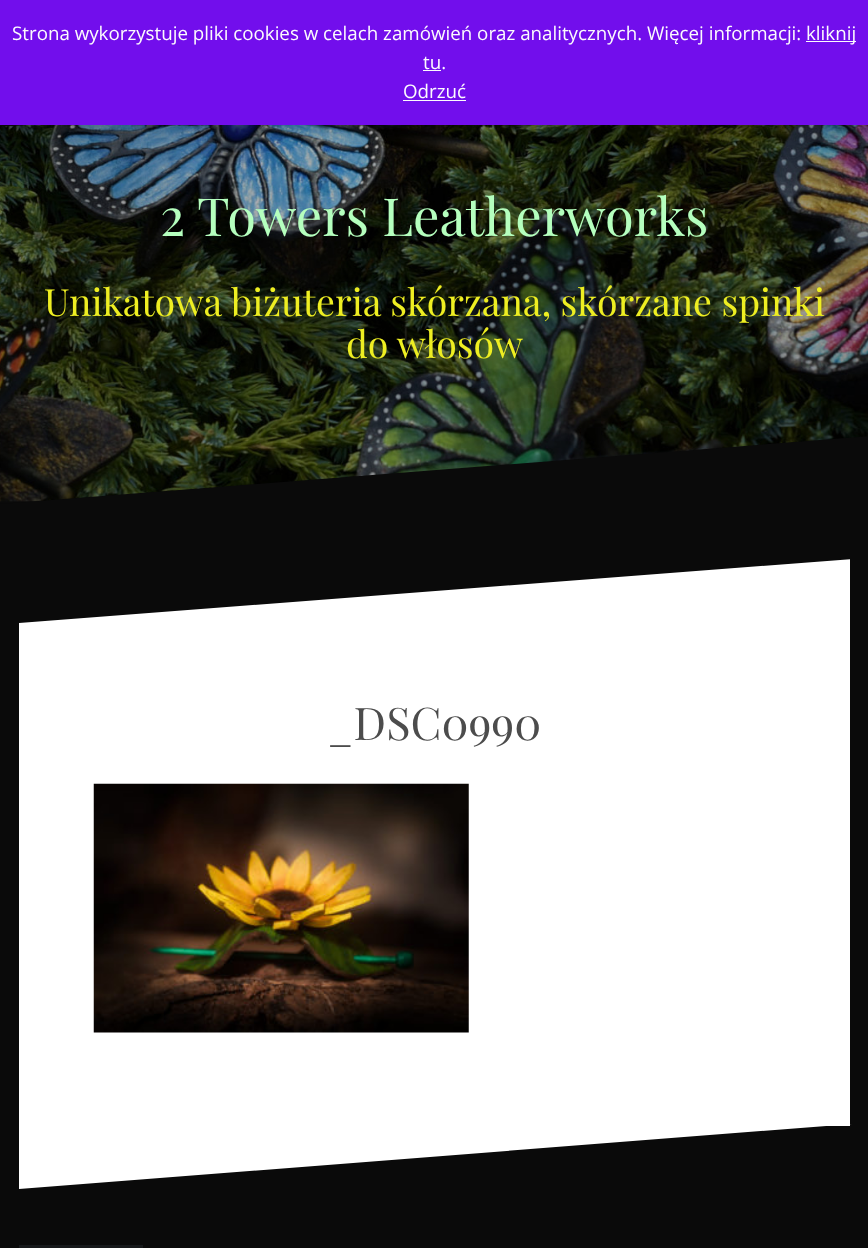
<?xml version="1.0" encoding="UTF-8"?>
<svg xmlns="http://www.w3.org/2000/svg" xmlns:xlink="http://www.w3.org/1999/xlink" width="868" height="1248">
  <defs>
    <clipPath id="clip1"><rect y="60" width="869" height="66" /></clipPath>
    <clipPath id="clip2"><rect x="19" y="558" width="831" height="66" /></clipPath>
  </defs>
  <rect width="100%" height="100%" fill="#0a0a0a" />
  <image x="0" y="125" width="868" height="377" xlink:href="image1.png" />
  <g clip-path="url(#clip1)">
    <path d="M 0 127 v -67 h 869" fill="#0a0a0a" />
  </g>
  <rect y="1" width="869" height="125" fill="#000000" fill-opacity="0.2" filter="blur(9.5px)" />
  <rect width="868" height="125" fill="#720eec" />
  <rect x="806" y="41" width="50" height="1" fill="#fcfbfe" />
  <rect x="423" y="70" width="18" height="1" fill="#fcfbfe" />
  <rect x="403" y="100" width="63" height="1" fill="#fcfbfe" />
  <path d="M 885 435 v 69 h -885" fill="#0a0a0a" />
  <g clip-path="url(#clip2)">
    <path d="M 865 558 v 65 h -846" fill="#ffffff" />
  </g>
  <rect x="19" y="623" width="831" height="503" fill="#ffffff" />
  <image x="93" y="783" width="376" height="250" xlink:href="image2.png" />
  <path d="M 19 1189 v -65 h 833" fill="#ffffff" />
  <rect x="19" y="1245" width="124" height="3" fill="#17191b" />
  <text x="12" y="40" style="font-family: Open Sans; font-size: 18.75px; fill: #fcfbfe">Strona wykorzystuje pliki cookies w celach zamówień oraz analitycznych. Więcej informacji:</text>
  <text x="806" y="40" style="font-family: Open Sans; font-size: 18.75px; fill: #fcfbfe">kliknij</text>
  <text x="423" y="69" style="font-family: Open Sans; font-size: 18.75px; fill: #fcfbfe">tu.</text>
  <text x="403" y="98" style="font-family: Open Sans; font-size: 18.75px; fill: #fcfbfe">Odrzuć</text>
  <text x="160" y="236" style="font-family: Playfair Display; font-size: 52.5px; fill: #b5ffbe">2 Towers Leatherworks</text>
  <text x="44" y="316" style="font-family: Playfair Display; font-size: 37.5px; fill: #eeee22">Unikatowa biżuteria skórzana, skórzane spinki</text>
  <text x="346" y="358" style="font-family: Playfair Display; font-size: 37.5px; fill: #eeee22">do włosów</text>
  <text x="327" y="740" style="font-family: Playfair Display; font-size: 45px; fill: #4c4c4c">_DSC0990</text>
</svg>
